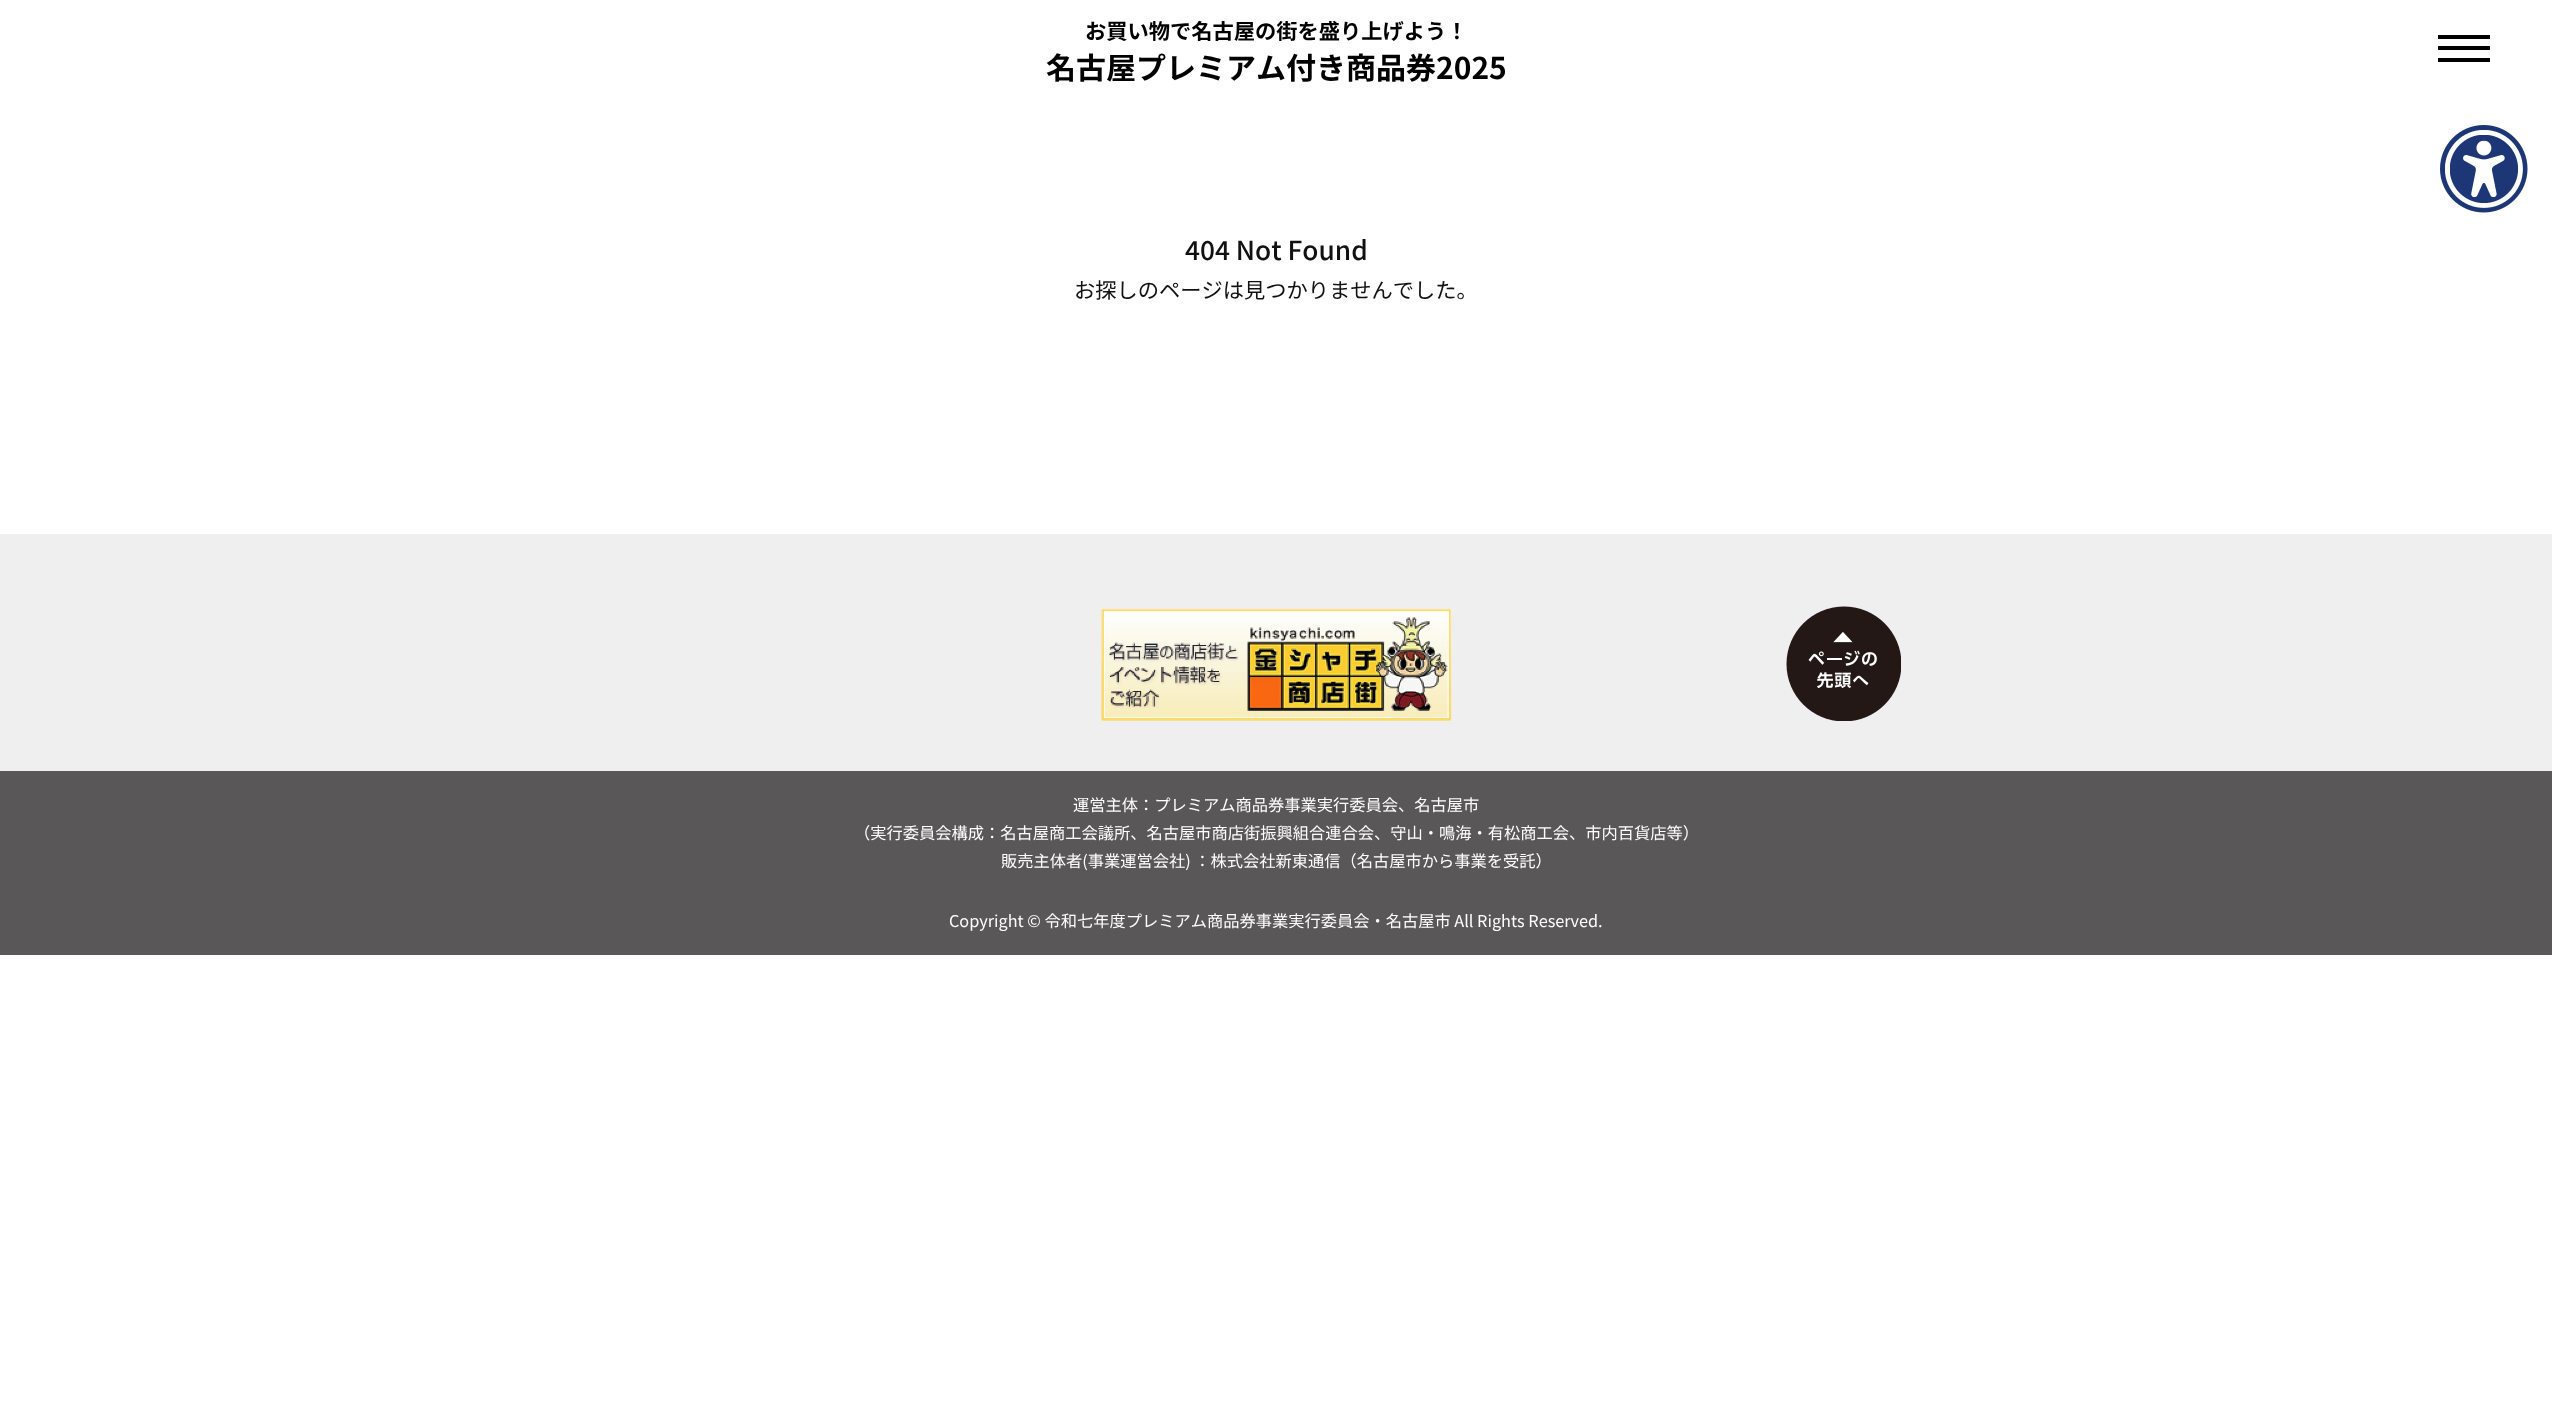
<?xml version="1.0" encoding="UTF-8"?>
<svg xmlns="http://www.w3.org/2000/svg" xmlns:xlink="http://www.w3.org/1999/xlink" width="2552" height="1426">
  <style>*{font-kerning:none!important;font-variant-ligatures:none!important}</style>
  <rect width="100%" height="100%" fill="#ffffff" />
  <rect x="2438" y="35" width="52" height="4" fill="#000000" />
  <rect x="2438" y="46" width="52" height="4" fill="#000000" />
  <rect x="2438" y="58" width="52" height="4" fill="#000000" />
  <image x="2440" y="125" width="88" height="88" xlink:href="image1.png" />
  <rect y="534" width="2552" height="237" fill="#efeff0" />
  <image x="1101" y="608" width="351" height="113" xlink:href="image2.png" />
  <image x="1786" y="606" width="115" height="115" xlink:href="image3.png" />
  <rect y="771" width="2552" height="184" fill="#595757" />
  <text x="1085" y="39" style="font-family: Noto Sans JP; font-size: 21.25px; font-weight: bold; fill: #000000">お買い物で名古屋の街を盛り上げよう！</text>
  <text x="1046" y="79" style="font-family: Noto Sans JP; font-size: 30px; font-weight: bold; fill: #000000">名古屋プレミアム付き商品券2025</text>
  <text x="1185" y="260" style="font-family: Noto Sans JP; font-size: 26.25px; font-weight: 500; fill: #111111">404 Not Found</text>
  <text x="1074" y="298" style="font-family: Noto Sans JP; font-size: 21.25px; fill: #111111">お探しのページは見つかりませんでした。</text>
  <text x="1073" y="811" style="font-family: Noto Sans JP; font-size: 16.25px; fill: #ffffff">運営主体：プレミアム商品券事業実行委員会、名古屋市</text>
  <text x="854" y="839" style="font-family: Noto Sans JP; font-size: 16.25px; fill: #ffffff">（実行委員会構成：名古屋商工会議所、名古屋市商店街振興組合連合会、守山・鳴海・有松商工会、市内百貨店等）</text>
  <text x="1001" y="867" style="font-family: Noto Sans JP; font-size: 16.25px; fill: #ffffff">販売主体者(事業運営会社) ：株式会社新東通信（名古屋市から事業を受託）</text>
  <text x="949" y="927" style="font-family: Noto Sans JP; font-size: 16.25px; fill: #ffffff">Copyright © 令和七年度プレミアム商品券事業実行委員会・名古屋市 All Rights Reserved.</text>
</svg>
